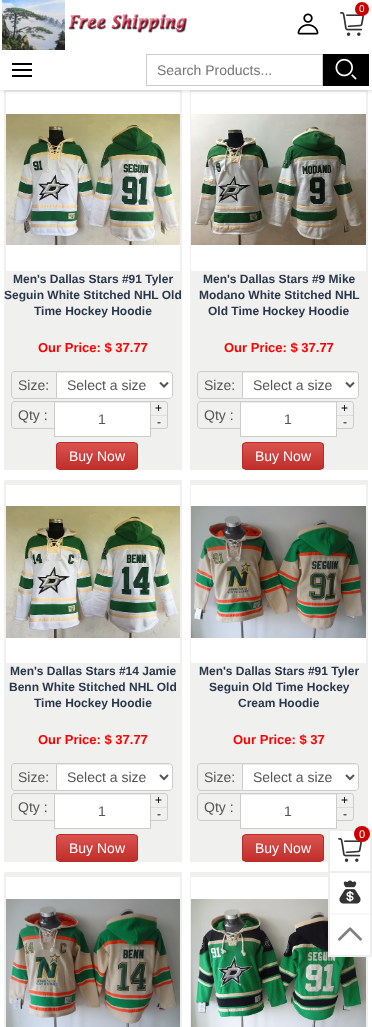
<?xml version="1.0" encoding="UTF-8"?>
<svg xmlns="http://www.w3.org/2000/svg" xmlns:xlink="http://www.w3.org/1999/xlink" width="372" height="1027">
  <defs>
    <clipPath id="clip1"><rect x="56" y="442" width="82" height="28" rx="4" /></clipPath>
    <linearGradient id="g1" gradientUnits="userSpaceOnUse" x1="97" y1="443" x2="97" y2="469"><stop offset="0" stop-color="#d9534f" /><stop offset="1" stop-color="#c12e2a" /></linearGradient>
    <clipPath id="clip2"><rect x="242" y="442" width="82" height="28" rx="4" /></clipPath>
    <linearGradient id="g2" gradientUnits="userSpaceOnUse" x1="283" y1="443" x2="283" y2="469"><stop offset="0" stop-color="#d9534f" /><stop offset="1" stop-color="#c12e2a" /></linearGradient>
    <clipPath id="clip3"><rect x="56" y="834" width="82" height="28" rx="4" /></clipPath>
    <linearGradient id="g3" gradientUnits="userSpaceOnUse" x1="97" y1="835" x2="97" y2="861"><stop offset="0" stop-color="#d9534f" /><stop offset="1" stop-color="#c12e2a" /></linearGradient>
    <clipPath id="clip4"><rect x="242" y="834" width="82" height="28" rx="4" /></clipPath>
    <linearGradient id="g4" gradientUnits="userSpaceOnUse" x1="283" y1="835" x2="283" y2="861"><stop offset="0" stop-color="#d9534f" /><stop offset="1" stop-color="#c12e2a" /></linearGradient>
  </defs>
  <rect width="100%" height="100%" fill="#ffffff" />
  <rect x="4" y="90" width="178" height="380" fill="#f0f0ef" />
  <rect x="6" y="92" width="174" height="179" fill="#ffffff" />
  <rect x="190" y="90" width="178" height="380" fill="#f0f0ef" />
  <rect x="191" y="92" width="175" height="179" fill="#ffffff" />
  <rect width="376" height="90" fill="#000000" fill-opacity="0.2" filter="blur(2.5px)" />
  <rect width="372" height="90" fill="#ffffff" />
  <image x="2" y="0" width="63" height="50" xlink:href="image1.png" />
  <image x="68" y="14" width="120" height="19" xlink:href="image2.png" />
  <image x="340" y="12" width="24" height="24" xlink:href="image3.png" />
  <circle cx="362" cy="9" r="7" fill="#cc0000" />
  <image x="297" y="13" width="22" height="22" xlink:href="image4.png" />
  <rect x="12" y="69" width="20" height="2" fill="#000000" />
  <rect x="12" y="63" width="20" height="2" fill="#000000" />
  <rect x="12" y="75" width="20" height="2" fill="#000000" />
  <rect x="146.5" y="54.5" width="176" height="31" fill="none" stroke="#cccccc" />
  <rect x="323" y="54" width="46" height="32" fill="#000000" />
  <image x="335" y="58" width="22" height="22" xlink:href="image5.png" />
  <image x="6" y="114" width="174" height="131" xlink:href="image6.png" />
  <path d="M 15 371 h 41 v 28 h -41 c -2 0 -4 -2 -4 -4 v -20 c 0 -2 2 -4 4 -4 z m 0 1 h 41 v 26 h -41 c -2 0 -3 -1 -3 -3 v -20 c 0 -2 1 -3 3 -3 z" fill="#cccccc" fill-rule="evenodd" />
  <path d="M 56 371 h 113 c 2 0 4 2 4 4 v 20 c 0 2 -2 4 -4 4 h -113 z" fill="#ffffff" />
  <path d="M 57 373 h 112 c 2 0 3 1 3 3 v -1 c 0 -2 -1 -3 -3 -3 h -112 z" fill="#ececec" />
  <path d="M 56.5 371.5 h 112.5 c 2 0 3.5 1.5 3.5 3.5 v 20 c 0 2 -1.5 3.5 -3.5 3.5 h -112.5 z" fill="none" stroke="#cccccc" />
  <path d="M 160 382.5 l 4 4 l 4 -4" fill="none" stroke="#555555" stroke-width="2" />
  <path d="M 15 401 h 39 v 28 h -39 c -2 0 -4 -2 -4 -4 v -20 c 0 -2 2 -4 4 -4 z m 0 1 h 39 v 26 h -39 c -2 0 -3 -1 -3 -3 v -20 c 0 -2 1 -3 3 -3 z" fill="#cccccc" fill-rule="evenodd" />
  <rect x="55" y="403" width="95" height="33" fill="#ffffff" />
  <rect x="55" y="402" width="95" height="1" fill="#ececec" />
  <rect x="54.5" y="401.5" width="96" height="35" fill="none" stroke="#cccccc" />
  <path d="M 151 401 h 14 c 1.5 0 3 1.5 3 3 v 22 c 0 1.5 -1.5 3 -3 3 h -14 z m 0 1 h 14 c 1 0 2 1 2 2 v 22 c 0 1 -1 2 -2 2 h -14 z" fill="#cccccc" fill-rule="evenodd" />
  <rect x="151" y="415" width="16" height="1" fill="#dddddd" />
  <g clip-path="url(#clip1)">
    <rect x="56" y="443" width="82" height="26" fill="url(#g1)" />
  </g>
  <rect x="56.5" y="442.5" width="81" height="27" rx="3.5" fill="none" stroke="#b92c28" />
  <image x="191" y="114" width="175" height="131" xlink:href="image7.png" />
  <path d="M 201 371 h 41 v 28 h -41 c -2 0 -4 -2 -4 -4 v -20 c 0 -2 2 -4 4 -4 z m 0 1 h 41 v 26 h -41 c -2 0 -3 -1 -3 -3 v -20 c 0 -2 1 -3 3 -3 z" fill="#cccccc" fill-rule="evenodd" />
  <path d="M 242 371 h 113 c 2 0 4 2 4 4 v 20 c 0 2 -2 4 -4 4 h -113 z" fill="#ffffff" />
  <path d="M 243 373 h 112 c 2 0 3 1 3 3 v -1 c 0 -2 -1 -3 -3 -3 h -112 z" fill="#ececec" />
  <path d="M 242.5 371.5 h 112.5 c 2 0 3.5 1.5 3.5 3.5 v 20 c 0 2 -1.5 3.5 -3.5 3.5 h -112.5 z" fill="none" stroke="#cccccc" />
  <path d="M 346 382.5 l 4 4 l 4 -4" fill="none" stroke="#555555" stroke-width="2" />
  <path d="M 201 401 h 39 v 28 h -39 c -2 0 -4 -2 -4 -4 v -20 c 0 -2 2 -4 4 -4 z m 0 1 h 39 v 26 h -39 c -2 0 -3 -1 -3 -3 v -20 c 0 -2 1 -3 3 -3 z" fill="#cccccc" fill-rule="evenodd" />
  <rect x="241" y="403" width="95" height="33" fill="#ffffff" />
  <rect x="241" y="402" width="95" height="1" fill="#ececec" />
  <rect x="240.5" y="401.5" width="96" height="35" fill="none" stroke="#cccccc" />
  <path d="M 337 401 h 14 c 1.5 0 3 1.5 3 3 v 22 c 0 1.5 -1.5 3 -3 3 h -14 z m 0 1 h 14 c 1 0 2 1 2 2 v 22 c 0 1 -1 2 -2 2 h -14 z" fill="#cccccc" fill-rule="evenodd" />
  <rect x="337" y="415" width="16" height="1" fill="#dddddd" />
  <g clip-path="url(#clip2)">
    <rect x="242" y="443" width="82" height="26" fill="url(#g2)" />
  </g>
  <rect x="242.5" y="442.5" width="81" height="27" rx="3.5" fill="none" stroke="#b92c28" />
  <rect x="4" y="480" width="178" height="382" fill="#f0f0ef" />
  <rect x="6" y="485" width="174" height="178" fill="#ffffff" />
  <image x="6" y="506" width="174" height="132" xlink:href="image8.png" />
  <path d="M 15 763 h 41 v 28 h -41 c -2 0 -4 -2 -4 -4 v -20 c 0 -2 2 -4 4 -4 z m 0 1 h 41 v 26 h -41 c -2 0 -3 -1 -3 -3 v -20 c 0 -2 1 -3 3 -3 z" fill="#cccccc" fill-rule="evenodd" />
  <path d="M 56 763 h 113 c 2 0 4 2 4 4 v 20 c 0 2 -2 4 -4 4 h -113 z" fill="#ffffff" />
  <path d="M 57 765 h 112 c 2 0 3 1 3 3 v -1 c 0 -2 -1 -3 -3 -3 h -112 z" fill="#ececec" />
  <path d="M 56.5 763.5 h 112.5 c 2 0 3.5 1.5 3.5 3.5 v 20 c 0 2 -1.5 3.5 -3.5 3.5 h -112.5 z" fill="none" stroke="#cccccc" />
  <path d="M 160 775 l 4 4 l 4 -4" fill="none" stroke="#555555" stroke-width="2" />
  <path d="M 15 793 h 39 v 28 h -39 c -2 0 -4 -2 -4 -4 v -20 c 0 -2 2 -4 4 -4 z m 0 1 h 39 v 26 h -39 c -2 0 -3 -1 -3 -3 v -20 c 0 -2 1 -3 3 -3 z" fill="#cccccc" fill-rule="evenodd" />
  <rect x="55" y="795" width="95" height="33" fill="#ffffff" />
  <rect x="55" y="794" width="95" height="1" fill="#ececec" />
  <rect x="54.5" y="793.5" width="96" height="35" fill="none" stroke="#cccccc" />
  <path d="M 151 793 h 14 c 1.5 0 3 1.5 3 3 v 22 c 0 1.5 -1.5 3 -3 3 h -14 z m 0 1 h 14 c 1 0 2 1 2 2 v 22 c 0 1 -1 2 -2 2 h -14 z" fill="#cccccc" fill-rule="evenodd" />
  <rect x="151" y="807" width="16" height="1" fill="#dddddd" />
  <g clip-path="url(#clip3)">
    <rect x="56" y="835" width="82" height="26" fill="url(#g3)" />
  </g>
  <rect x="56.5" y="834.5" width="81" height="27" rx="3.5" fill="none" stroke="#b92c28" />
  <rect x="190" y="480" width="178" height="382" fill="#f0f0ef" />
  <rect x="191" y="485" width="175" height="178" fill="#ffffff" />
  <image x="191" y="506" width="175" height="132" xlink:href="image9.png" />
  <path d="M 201 763 h 41 v 28 h -41 c -2 0 -4 -2 -4 -4 v -20 c 0 -2 2 -4 4 -4 z m 0 1 h 41 v 26 h -41 c -2 0 -3 -1 -3 -3 v -20 c 0 -2 1 -3 3 -3 z" fill="#cccccc" fill-rule="evenodd" />
  <path d="M 242 763 h 113 c 2 0 4 2 4 4 v 20 c 0 2 -2 4 -4 4 h -113 z" fill="#ffffff" />
  <path d="M 243 765 h 112 c 2 0 3 1 3 3 v -1 c 0 -2 -1 -3 -3 -3 h -112 z" fill="#ececec" />
  <path d="M 242.5 763.5 h 112.5 c 2 0 3.5 1.5 3.5 3.5 v 20 c 0 2 -1.5 3.5 -3.5 3.5 h -112.5 z" fill="none" stroke="#cccccc" />
  <path d="M 346 775 l 4 4 l 4 -4" fill="none" stroke="#555555" stroke-width="2" />
  <path d="M 201 793 h 39 v 28 h -39 c -2 0 -4 -2 -4 -4 v -20 c 0 -2 2 -4 4 -4 z m 0 1 h 39 v 26 h -39 c -2 0 -3 -1 -3 -3 v -20 c 0 -2 1 -3 3 -3 z" fill="#cccccc" fill-rule="evenodd" />
  <rect x="241" y="795" width="95" height="33" fill="#ffffff" />
  <rect x="241" y="794" width="95" height="1" fill="#ececec" />
  <rect x="240.5" y="793.5" width="96" height="35" fill="none" stroke="#cccccc" />
  <path d="M 337 793 h 14 c 1.5 0 3 1.5 3 3 v 22 c 0 1.5 -1.5 3 -3 3 h -14 z m 0 1 h 14 c 1 0 2 1 2 2 v 22 c 0 1 -1 2 -2 2 h -14 z" fill="#cccccc" fill-rule="evenodd" />
  <rect x="337" y="807" width="16" height="1" fill="#dddddd" />
  <g clip-path="url(#clip4)">
    <rect x="242" y="835" width="82" height="26" fill="url(#g4)" />
  </g>
  <rect x="242.5" y="834.5" width="81" height="27" rx="3.5" fill="none" stroke="#b92c28" />
  <rect x="4" y="872" width="178" height="155" fill="#f0f0ef" />
  <rect x="6" y="877" width="174" height="22" fill="#ffffff" />
  <image x="6" y="899" width="174" height="128" xlink:href="image10.png" />
  <rect x="190" y="872" width="178" height="155" fill="#f0f0ef" />
  <rect x="191" y="877" width="137" height="22" fill="#ffffff" />
  <image x="191" y="899" width="175" height="128" xlink:href="image11.png" />
  <rect x="330" y="831" width="38" height="124" fill="#ffffff" />
  <rect x="329" y="830" width="42" height="126" fill="none" stroke="#eeeeee" stroke-width="2" />
  <rect x="330" y="871" width="40" height="2" fill="#eeeeee" />
  <image x="338" y="838" width="24" height="24" xlink:href="image3.png" />
  <circle cx="362" cy="834" r="8" fill="#cc0000" />
  <image x="339" y="880" width="22" height="24" xlink:href="image12.png" />
  <rect x="330" y="913" width="40" height="2" fill="#f7f7f7" />
  <image x="338" y="927" width="24" height="14" xlink:href="image13.png" />
  <text x="359" y="12" style="font-family: Liberation Sans; font-size: 10px; fill: #ffffff">0</text>
  <text x="157" y="75" style="font-family: Liberation Sans; font-size: 14px; fill: #757575">Search Products...</text>
  <text x="13" y="283" style="font-family: Liberation Sans; font-size: 12px; font-weight: bold; fill: #2b374d">Men's Dallas Stars #91 Tyler</text>
  <text x="4" y="299" style="font-family: Liberation Sans; font-size: 12px; font-weight: bold; fill: #2b374d">Seguin White Stitched NHL Old</text>
  <text x="34" y="315" style="font-family: Liberation Sans; font-size: 12px; font-weight: bold; fill: #2b374d">Time Hockey Hoodie</text>
  <text x="38" y="352" style="font-family: Liberation Sans; font-size: 13px; font-weight: bold; fill: #ff0000">Our Price: $ 37.77</text>
  <text x="18" y="390" style="font-family: Liberation Sans; font-size: 14px; fill: #555555">Size:</text>
  <text x="67" y="390" style="font-family: Liberation Sans; font-size: 14px; fill: #555555">Select a size</text>
  <text x="18" y="420" style="font-family: Liberation Sans; font-size: 14px; fill: #555555">Qty :</text>
  <text x="98" y="424" style="font-family: Liberation Sans; font-size: 14px; fill: #555555">1</text>
  <text x="155" y="412" style="font-family: Liberation Sans; font-size: 12px; fill: #000000">+</text>
  <text x="157" y="426" style="font-family: Liberation Sans; font-size: 12px; fill: #000000">-</text>
  <text x="69" y="461" style="font-family: Liberation Sans; font-size: 14px; fill: #ffffff">Buy Now</text>
  <text x="203" y="283" style="font-family: Liberation Sans; font-size: 12px; font-weight: bold; fill: #2b374d">Men's Dallas Stars #9 Mike</text>
  <text x="199" y="299" style="font-family: Liberation Sans; font-size: 12px; font-weight: bold; fill: #2b374d">Modano White Stitched NHL</text>
  <text x="208" y="315" style="font-family: Liberation Sans; font-size: 12px; font-weight: bold; fill: #2b374d">Old Time Hockey Hoodie</text>
  <text x="224" y="352" style="font-family: Liberation Sans; font-size: 13px; font-weight: bold; fill: #ff0000">Our Price: $ 37.77</text>
  <text x="204" y="390" style="font-family: Liberation Sans; font-size: 14px; fill: #555555">Size:</text>
  <text x="253" y="390" style="font-family: Liberation Sans; font-size: 14px; fill: #555555">Select a size</text>
  <text x="204" y="420" style="font-family: Liberation Sans; font-size: 14px; fill: #555555">Qty :</text>
  <text x="284" y="424" style="font-family: Liberation Sans; font-size: 14px; fill: #555555">1</text>
  <text x="341" y="412" style="font-family: Liberation Sans; font-size: 12px; fill: #000000">+</text>
  <text x="343" y="426" style="font-family: Liberation Sans; font-size: 12px; fill: #000000">-</text>
  <text x="255" y="461" style="font-family: Liberation Sans; font-size: 14px; fill: #ffffff">Buy Now</text>
  <text x="10" y="675" style="font-family: Liberation Sans; font-size: 12px; font-weight: bold; fill: #2b374d">Men's Dallas Stars #14 Jamie</text>
  <text x="9" y="691" style="font-family: Liberation Sans; font-size: 12px; font-weight: bold; fill: #2b374d">Benn White Stitched NHL Old</text>
  <text x="34" y="707" style="font-family: Liberation Sans; font-size: 12px; font-weight: bold; fill: #2b374d">Time Hockey Hoodie</text>
  <text x="38" y="744" style="font-family: Liberation Sans; font-size: 13px; font-weight: bold; fill: #ff0000">Our Price: $ 37.77</text>
  <text x="18" y="782" style="font-family: Liberation Sans; font-size: 14px; fill: #555555">Size:</text>
  <text x="67" y="782" style="font-family: Liberation Sans; font-size: 14px; fill: #555555">Select a size</text>
  <text x="18" y="812" style="font-family: Liberation Sans; font-size: 14px; fill: #555555">Qty :</text>
  <text x="98" y="816" style="font-family: Liberation Sans; font-size: 14px; fill: #555555">1</text>
  <text x="155" y="804" style="font-family: Liberation Sans; font-size: 12px; fill: #000000">+</text>
  <text x="157" y="818" style="font-family: Liberation Sans; font-size: 12px; fill: #000000">-</text>
  <text x="69" y="853" style="font-family: Liberation Sans; font-size: 14px; fill: #ffffff">Buy Now</text>
  <text x="199" y="675" style="font-family: Liberation Sans; font-size: 12px; font-weight: bold; fill: #2b374d">Men's Dallas Stars #91 Tyler</text>
  <text x="209" y="691" style="font-family: Liberation Sans; font-size: 12px; font-weight: bold; fill: #2b374d">Seguin Old Time Hockey</text>
  <text x="238" y="707" style="font-family: Liberation Sans; font-size: 12px; font-weight: bold; fill: #2b374d">Cream Hoodie</text>
  <text x="233" y="744" style="font-family: Liberation Sans; font-size: 13px; font-weight: bold; fill: #ff0000">Our Price: $ 37</text>
  <text x="204" y="782" style="font-family: Liberation Sans; font-size: 14px; fill: #555555">Size:</text>
  <text x="253" y="782" style="font-family: Liberation Sans; font-size: 14px; fill: #555555">Select a size</text>
  <text x="204" y="812" style="font-family: Liberation Sans; font-size: 14px; fill: #555555">Qty :</text>
  <text x="284" y="816" style="font-family: Liberation Sans; font-size: 14px; fill: #555555">1</text>
  <text x="341" y="804" style="font-family: Liberation Sans; font-size: 12px; fill: #000000">+</text>
  <text x="343" y="818" style="font-family: Liberation Sans; font-size: 12px; fill: #000000">-</text>
  <text x="255" y="853" style="font-family: Liberation Sans; font-size: 14px; fill: #ffffff">Buy Now</text>
  <text x="359" y="838" style="font-family: Liberation Sans; font-size: 11px; fill: #ffffff">0</text>
</svg>
